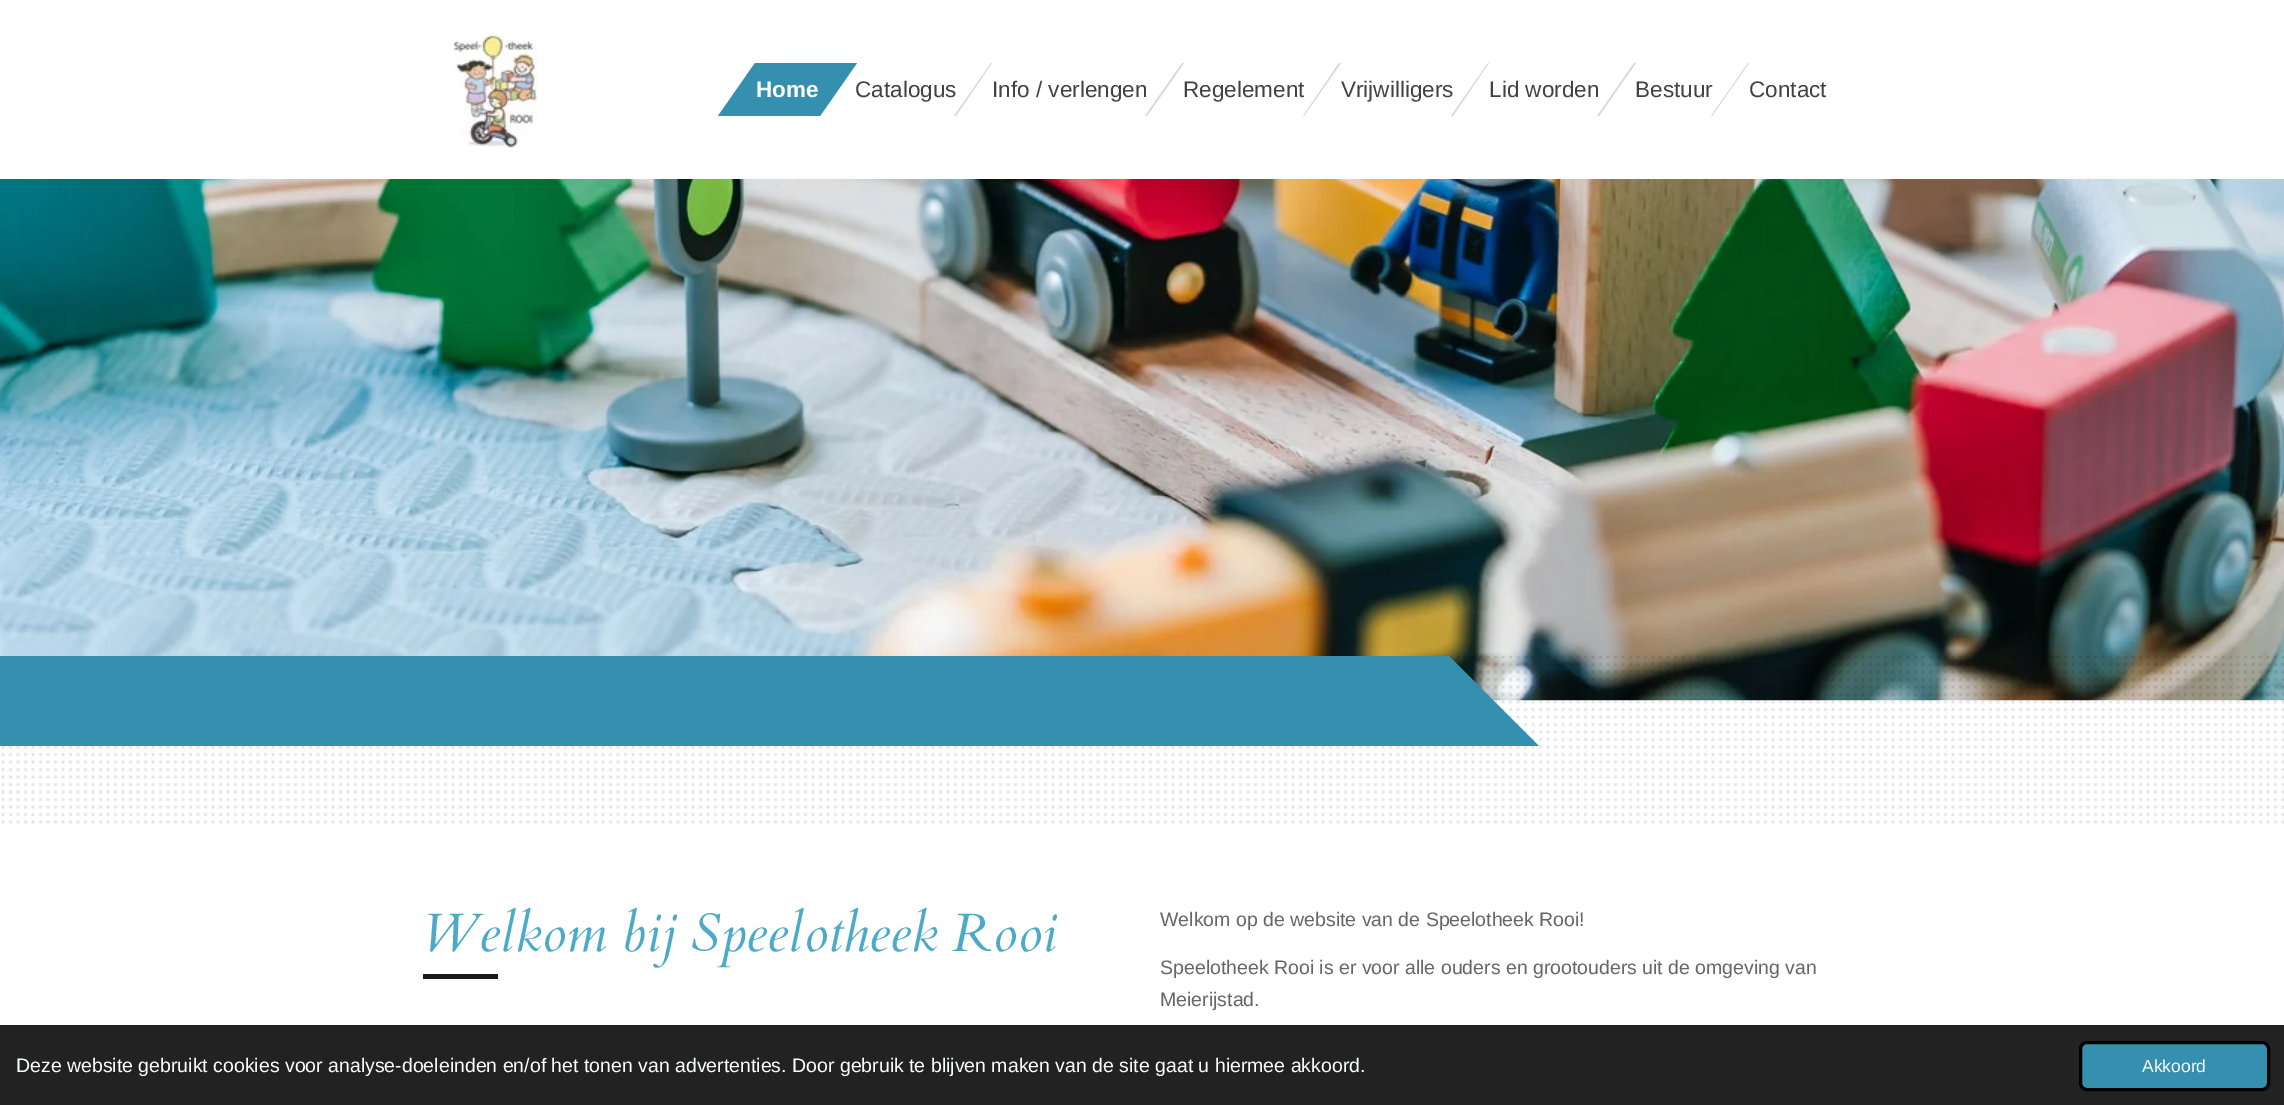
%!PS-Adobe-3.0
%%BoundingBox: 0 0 2284 1105
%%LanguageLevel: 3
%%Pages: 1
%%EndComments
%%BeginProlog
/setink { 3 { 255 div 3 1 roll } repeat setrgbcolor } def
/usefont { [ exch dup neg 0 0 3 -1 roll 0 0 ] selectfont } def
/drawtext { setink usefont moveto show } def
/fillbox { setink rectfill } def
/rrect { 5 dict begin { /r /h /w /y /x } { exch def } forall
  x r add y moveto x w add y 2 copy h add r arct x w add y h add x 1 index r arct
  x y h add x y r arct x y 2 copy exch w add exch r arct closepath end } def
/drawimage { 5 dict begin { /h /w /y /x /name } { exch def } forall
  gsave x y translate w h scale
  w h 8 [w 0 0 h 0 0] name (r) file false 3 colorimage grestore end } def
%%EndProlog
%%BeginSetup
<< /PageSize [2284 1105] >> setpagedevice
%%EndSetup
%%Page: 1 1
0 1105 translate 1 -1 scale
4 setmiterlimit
0 0 2284 1105 255 255 255 fillbox
(assets/img1.rgb) 453 33 85 115 drawimage
217 217 217 setink
991 63 moveto 992 63 lineto 956 116 lineto 954 116 lineto closepath fill
(Catalogus) 855 97 /LiberationSans-Regular 22.5 66 66 66 drawtext
52 144 174 setink
755 63 moveto 857 63 lineto 820 116 lineto 718 116 lineto closepath fill
(Home) 756 97 /LiberationSans-Bold 22.5 252 254 254 drawtext
217 217 217 setink
1182 63 moveto 1184 63 lineto 1147 116 lineto 1145 116 lineto closepath fill
(Info / verlengen) 992 97 /LiberationSans-Regular 22.5 66 66 66 drawtext
217 217 217 setink
1339 63 moveto 1341 63 lineto 1304 116 lineto 1303 116 lineto closepath fill
(Regelement) 1183 97 /LiberationSans-Regular 22.5 66 66 66 drawtext
217 217 217 setink
1488 63 moveto 1489 63 lineto 1453 116 lineto 1451 116 lineto closepath fill
(Vrijwilligers) 1341 97 /LiberationSans-Regular 22.5 66 66 66 drawtext
217 217 217 setink
1634 63 moveto 1636 63 lineto 1599 116 lineto 1597 116 lineto closepath fill
(Lid worden) 1489 97 /LiberationSans-Regular 22.5 66 66 66 drawtext
217 217 217 setink
1748 63 moveto 1749 63 lineto 1712 116 lineto 1711 116 lineto closepath fill
(Bestuur) 1635 97 /LiberationSans-Regular 22.5 66 66 66 drawtext
(Contact) 1749 97 /LiberationSans-Regular 22.5 66 66 66 drawtext
(assets/img2.rgb) 0 179 2284 522 drawimage
(assets/img3.rgb) 1 655 2283 169 drawimage
0 656 1449 90 52 144 174 fillbox
1449 746 moveto 1449 656 lineto 1539 746 lineto closepath fill
(Welkom bij Speelotheek Rooi) 422 951 /Cardo-Italic 54 76 170 201 drawtext
423 974 75 5 26 26 26 fillbox
(Welkom op de website van de Speelotheek Rooi!) 1160 926 /LiberationSans-Regular 19.5 102 102 102 drawtext
(Speelotheek Rooi is er voor alle ouders en grootouders uit de omgeving van) 1160 974 /LiberationSans-Regular 19.5 102 102 102 drawtext
(Meierijstad.) 1160 1006 /LiberationSans-Regular 19.5 102 102 102 drawtext
0 1025 2284 80 34 34 34 fillbox
(Deze website gebruikt cookies voor analyse-doeleinden en/of het tonen van advertenties. Door gebruik te blijven maken van de site gaat u hiermee akkoord.) 16 1072 /LiberationSans-Regular 19.5 252 254 254 drawtext
52 144 174 setink
2080.5 1042.5 188 47 6.5 rrect gsave fill grestore
0 0 0 setink
3 setlinewidth
stroke
(Akkoord) 2142 1072 /LiberationSans-Regular 17.5 252 254 254 drawtext
showpage
%%EOF
